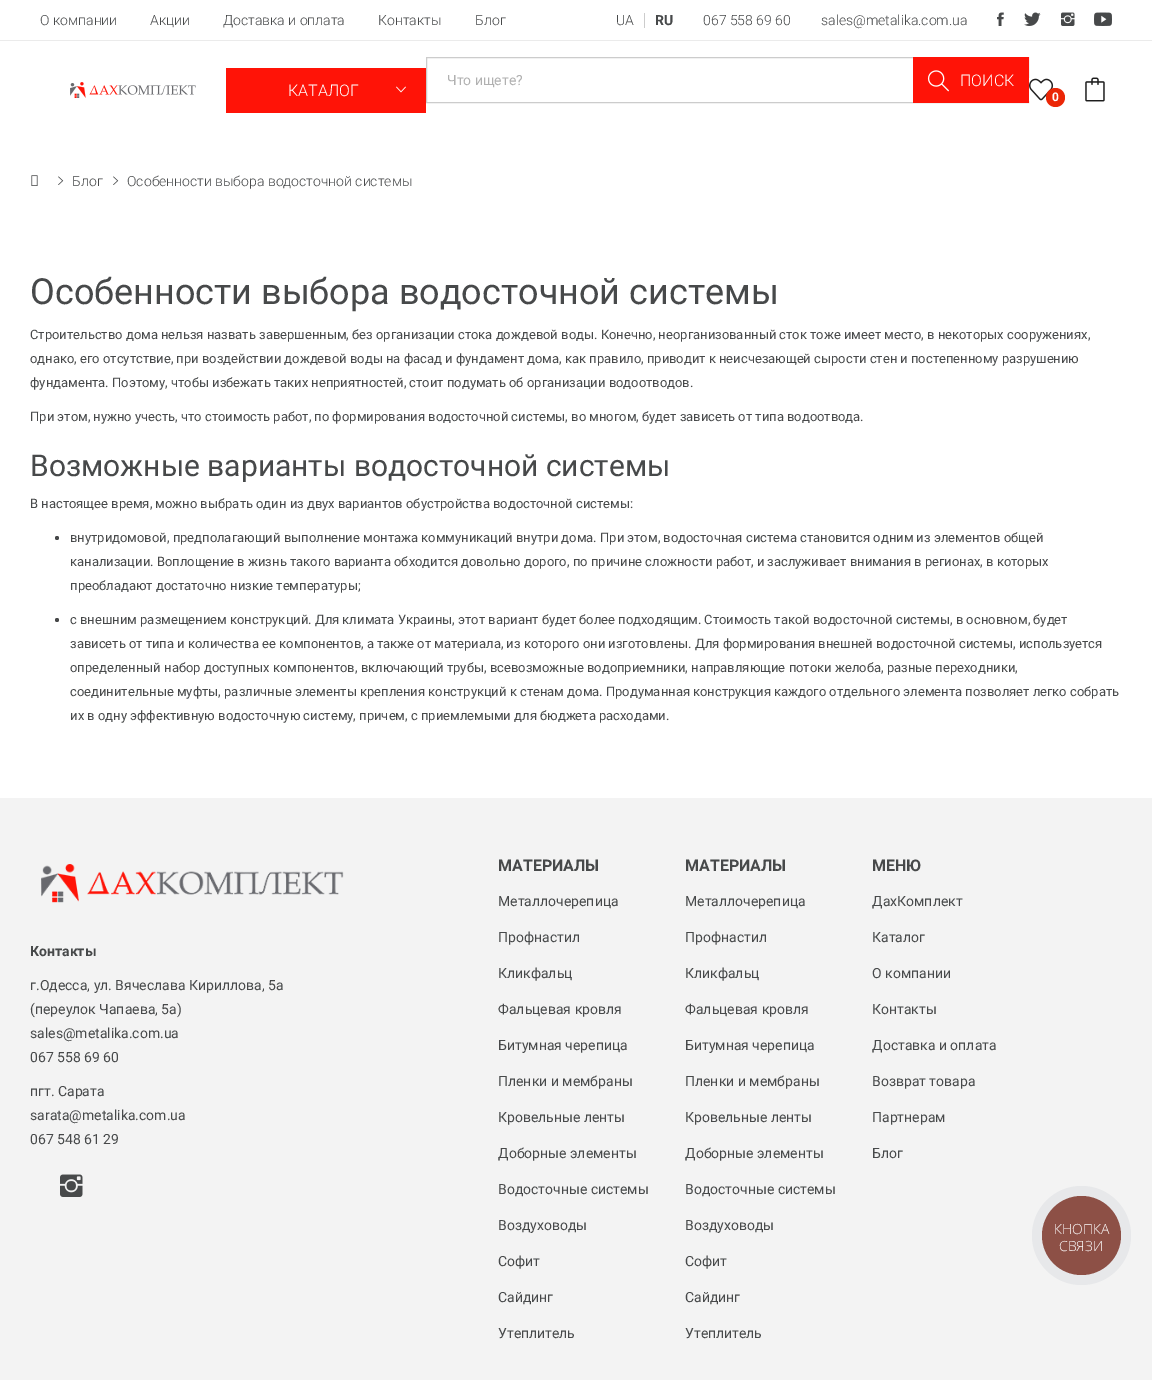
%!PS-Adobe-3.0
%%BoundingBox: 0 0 1152 1380
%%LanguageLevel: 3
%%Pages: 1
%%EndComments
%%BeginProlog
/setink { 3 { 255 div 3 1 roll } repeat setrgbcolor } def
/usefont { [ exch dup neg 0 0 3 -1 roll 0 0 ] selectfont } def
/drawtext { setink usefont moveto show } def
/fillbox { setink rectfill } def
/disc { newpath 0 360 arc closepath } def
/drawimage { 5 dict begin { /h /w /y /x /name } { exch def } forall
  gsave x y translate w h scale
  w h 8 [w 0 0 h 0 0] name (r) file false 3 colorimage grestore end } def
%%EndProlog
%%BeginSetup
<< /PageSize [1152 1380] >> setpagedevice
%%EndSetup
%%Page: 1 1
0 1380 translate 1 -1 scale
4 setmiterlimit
0 0 1152 1380 255 255 255 fillbox
0 40 1152 1 235 235 235 fillbox
(О компании) 40 25 /Roboto-Light 14 71 73 74 drawtext
(Акции) 150 25 /Roboto-Light 14 71 73 74 drawtext
(Доставка и оплата) 223 25 /Roboto-Light 14 71 73 74 drawtext
(Контакты) 378 25 /Roboto-Light 14 71 73 74 drawtext
(Блог) 475 25 /Roboto-Light 14 71 73 74 drawtext
(UA) 616 25 /Roboto-Light 14 71 73 74 drawtext
644 13 1 15 204 204 204 fillbox
(RU) 655 25 /Roboto-Bold 14 71 73 74 drawtext
(067 558 69 60) 703 25 /Roboto-Light 14 71 73 74 drawtext
(sales@metalika.com.ua) 821 25 /Roboto-Light 14 71 73 74 drawtext
(assets/img1.rgb) 997 12 7 14 drawimage
(assets/img2.rgb) 1024 12 17 14 drawimage
(assets/img3.rgb) 1061 12 14 14 drawimage
(assets/img4.rgb) 1094 12 18 14 drawimage
(assets/img5.rgb) 70 82 126 16 drawimage
226 68 200 45 255 19 7 fillbox
(КАТАЛОГ) 288 96 /Roboto-Light 16 255 255 255 drawtext
(assets/img6.rgb) 396 86 10 7 drawimage
204 204 204 setink
426.5 57.5 602 45 rectstroke
(Что ищете?) 447 85 /Roboto-Regular 14 177 177 177 drawtext
913 57 116 46 255 19 7 fillbox
(assets/img7.rgb) 927 70 22 22 drawimage
(ПОИСК) 960 86 /Roboto-Light 16 255 255 255 drawtext
(assets/img8.rgb) 1029 78 25 23 drawimage
235 38 6 setink
1055.5 97.5 9.5 disc fill
(0) 1052 101 /Roboto-Bold 12 255 255 255 drawtext
(assets/img9.rgb) 1085 77 20 25 drawimage
(assets/img10.rgb) 31 175 7 11 drawimage
(assets/img11.rgb) 58 176 6 9 drawimage
(Блог) 72 186 /Roboto-Light 14 71 73 74 drawtext
(assets/img11.rgb) 113 176 6 9 drawimage
(Особенности выбора водосточной системы) 127 186 /Roboto-Light 14 71 73 74 drawtext
(Особенности выбора водосточной системы) 30 304 /Roboto-Regular 36 71 73 74 drawtext
(Строительство дома нельзя назвать завершенным, без организации стока дождевой воды. Конечно, неорганизованный сток тоже имеет место, в некоторых сооружениях,) 30 339 /Roboto-Regular 13 71 73 74 drawtext
(однако, его отсутствие, при воздействии дождевой воды на фасад и фундамент дома, как правило, приводит к неисчезающей сырости стен и постепенному разрушению) 30 363 /Roboto-Regular 13 71 73 74 drawtext
(фундамента. Поэтому, чтобы избежать таких неприятностей, стоит подумать об организации водоотводов.) 30 387 /Roboto-Regular 13 71 73 74 drawtext
(При этом, нужно учесть, что стоимость работ, по формирования водосточной системы, во многом, будет зависеть от типа водоотвода.) 30 421 /Roboto-Regular 13 71 73 74 drawtext
(Возможные варианты водосточной системы) 30 476 /Roboto-Regular 30 71 73 74 drawtext
(В настоящее время, можно выбрать один из двух вариантов обустройства водосточной системы:) 30 508 /Roboto-Regular 13 71 73 74 drawtext
57 538 2 disc fill
(внутридомовой, предполагающий выполнение монтажа коммуникаций внутри дома. При этом, водосточная система становится одним из элементов общей) 70 542 /Roboto-Regular 13 71 73 74 drawtext
(канализации. Воплощение в жизнь такого варианта обходится довольно дорого, по причине сложности работ, и заслуживает внимания в регионах, в которых) 70 566 /Roboto-Regular 13 71 73 74 drawtext
(преобладают достаточно низкие температуры;) 70 590 /Roboto-Regular 13 71 73 74 drawtext
57 620 2 disc fill
(с внешним размещением конструкций. Для климата Украины, этот вариант будет более подходящим. Стоимость такой водосточной системы, в основном, будет) 70 624 /Roboto-Regular 13 71 73 74 drawtext
(зависеть от типа и количества ее компонентов, а также от материала, из которого они изготовлены. Для формирования внешней водосточной системы, используется) 70 648 /Roboto-Regular 13 71 73 74 drawtext
(определенный набор доступных компонентов, включающий трубы, всевозможные водоприемники, направляющие потоки желоба, разные переходники,) 70 672 /Roboto-Regular 13 71 73 74 drawtext
(соединительные муфты, различные элементы крепления конструкций к стенам дома. Продуманная конструкция каждого отдельного элемента позволяет легко собрать) 70 696 /Roboto-Regular 13 71 73 74 drawtext
(их в одну эффективную водосточную систему, причем, с приемлемыми для бюджета расходами.) 70 720 /Roboto-Regular 13 71 73 74 drawtext
0 798 1152 582 243 243 243 fillbox
(assets/img12.rgb) 41 864 303 39 drawimage
(Контакты) 30 956 /Roboto-Bold 14 71 73 74 drawtext
(г.Одесса, ул. Вячеслава Кириллова, 5а) 30 990 /Roboto-Regular 14 71 73 74 drawtext
(\(переулок Чапаева, 5а\)) 30 1014 /Roboto-Regular 14 71 73 74 drawtext
(sales@metalika.com.ua) 30 1038 /Roboto-Regular 14 71 73 74 drawtext
(067 558 69 60) 30 1062 /Roboto-Regular 14 71 73 74 drawtext
(пгт. Сарата) 30 1096 /Roboto-Regular 14 71 73 74 drawtext
(sarata@metalika.com.ua) 30 1120 /Roboto-Regular 14 71 73 74 drawtext
(067 548 61 29) 30 1144 /Roboto-Regular 14 71 73 74 drawtext
(assets/img13.rgb) 60 1174 23 23 drawimage
(МАТЕРИАЛЫ) 498 871 /Roboto-Bold 16 71 73 74 drawtext
(Металлочерепица) 498 906 /Roboto-Regular 14 71 73 74 drawtext
(Профнастил) 498 942 /Roboto-Regular 14 71 73 74 drawtext
(Кликфальц) 498 978 /Roboto-Regular 14 71 73 74 drawtext
(Фальцевая кровля) 498 1014 /Roboto-Regular 14 71 73 74 drawtext
(Битумная черепица) 498 1050 /Roboto-Regular 14 71 73 74 drawtext
(Пленки и мембраны) 498 1086 /Roboto-Regular 14 71 73 74 drawtext
(Кровельные ленты) 498 1122 /Roboto-Regular 14 71 73 74 drawtext
(Доборные элементы) 498 1158 /Roboto-Regular 14 71 73 74 drawtext
(Водосточные системы) 498 1194 /Roboto-Regular 14 71 73 74 drawtext
(Воздуховоды) 498 1230 /Roboto-Regular 14 71 73 74 drawtext
(Софит) 498 1266 /Roboto-Regular 14 71 73 74 drawtext
(Сайдинг) 498 1302 /Roboto-Regular 14 71 73 74 drawtext
(Утеплитель) 498 1338 /Roboto-Regular 14 71 73 74 drawtext
(МАТЕРИАЛЫ) 685 871 /Roboto-Bold 16 71 73 74 drawtext
(Металлочерепица) 685 906 /Roboto-Regular 14 71 73 74 drawtext
(Профнастил) 685 942 /Roboto-Regular 14 71 73 74 drawtext
(Кликфальц) 685 978 /Roboto-Regular 14 71 73 74 drawtext
(Фальцевая кровля) 685 1014 /Roboto-Regular 14 71 73 74 drawtext
(Битумная черепица) 685 1050 /Roboto-Regular 14 71 73 74 drawtext
(Пленки и мембраны) 685 1086 /Roboto-Regular 14 71 73 74 drawtext
(Кровельные ленты) 685 1122 /Roboto-Regular 14 71 73 74 drawtext
(Доборные элементы) 685 1158 /Roboto-Regular 14 71 73 74 drawtext
(Водосточные системы) 685 1194 /Roboto-Regular 14 71 73 74 drawtext
(Воздуховоды) 685 1230 /Roboto-Regular 14 71 73 74 drawtext
(Софит) 685 1266 /Roboto-Regular 14 71 73 74 drawtext
(Сайдинг) 685 1302 /Roboto-Regular 14 71 73 74 drawtext
(Утеплитель) 685 1338 /Roboto-Regular 14 71 73 74 drawtext
(МЕНЮ) 872 871 /Roboto-Bold 16 71 73 74 drawtext
(ДахКомплект) 872 906 /Roboto-Regular 14 71 73 74 drawtext
(Каталог) 872 942 /Roboto-Regular 14 71 73 74 drawtext
(О компании) 872 978 /Roboto-Regular 14 71 73 74 drawtext
(Контакты) 872 1014 /Roboto-Regular 14 71 73 74 drawtext
(Доставка и оплата) 872 1050 /Roboto-Regular 14 71 73 74 drawtext
(Возврат товара) 872 1086 /Roboto-Regular 14 71 73 74 drawtext
(Партнерам) 872 1122 /Roboto-Regular 14 71 73 74 drawtext
(Блог) 872 1158 /Roboto-Regular 14 71 73 74 drawtext
231 232 234 setink
1081.5 1235.5 49.5 disc fill
141 80 70 setink
1081.5 1235.5 39.5 disc fill
(КНОПКА) 1054 1234 /OpenSans-Light 14 255 255 255 drawtext
(СВЯЗИ) 1059 1251 /OpenSans-Light 14 255 255 255 drawtext
showpage
%%EOF
